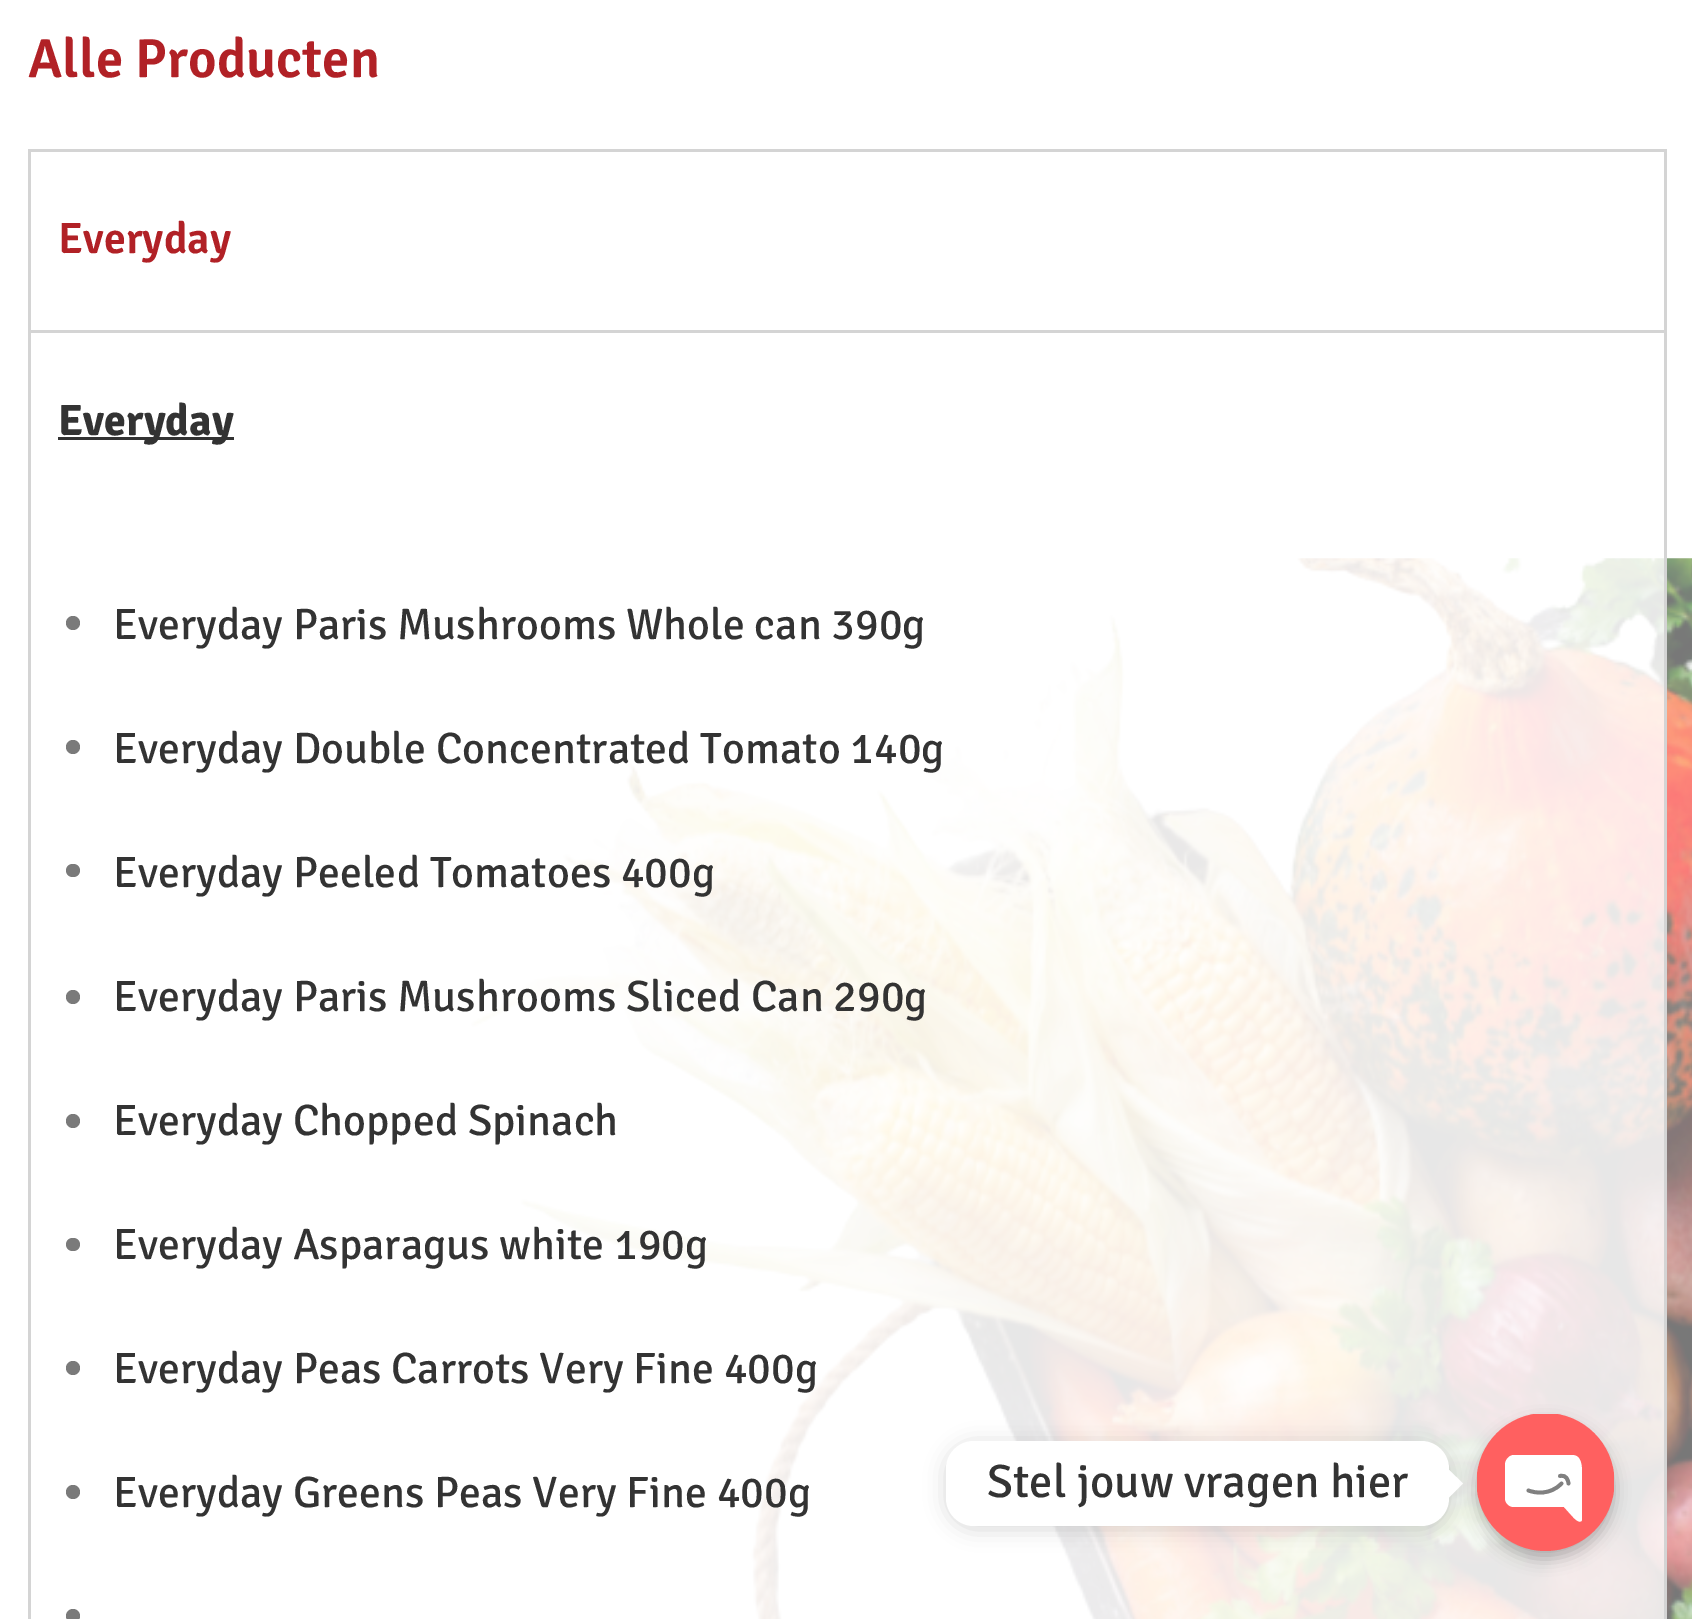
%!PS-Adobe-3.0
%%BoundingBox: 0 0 1692 1619
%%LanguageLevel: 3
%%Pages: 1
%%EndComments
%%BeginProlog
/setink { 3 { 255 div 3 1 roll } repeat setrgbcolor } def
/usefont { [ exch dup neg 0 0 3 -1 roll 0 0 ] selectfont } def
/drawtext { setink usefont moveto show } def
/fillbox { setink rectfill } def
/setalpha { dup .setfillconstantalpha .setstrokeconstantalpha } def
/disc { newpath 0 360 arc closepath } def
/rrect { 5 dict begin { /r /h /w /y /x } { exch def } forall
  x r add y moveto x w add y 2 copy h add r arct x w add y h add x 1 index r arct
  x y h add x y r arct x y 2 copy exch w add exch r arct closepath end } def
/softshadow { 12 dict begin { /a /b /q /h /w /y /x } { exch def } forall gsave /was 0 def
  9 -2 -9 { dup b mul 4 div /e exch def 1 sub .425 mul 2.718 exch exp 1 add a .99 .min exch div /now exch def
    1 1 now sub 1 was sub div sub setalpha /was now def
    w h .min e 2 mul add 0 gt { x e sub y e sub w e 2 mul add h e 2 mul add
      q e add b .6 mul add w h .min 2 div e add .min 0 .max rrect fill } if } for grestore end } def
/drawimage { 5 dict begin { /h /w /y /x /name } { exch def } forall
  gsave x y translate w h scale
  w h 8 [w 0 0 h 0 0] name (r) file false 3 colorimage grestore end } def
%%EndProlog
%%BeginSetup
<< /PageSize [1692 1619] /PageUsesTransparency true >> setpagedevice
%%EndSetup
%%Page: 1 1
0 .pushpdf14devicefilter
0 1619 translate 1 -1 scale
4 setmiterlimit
0 0 1692 1619 255 255 255 fillbox
(assets/img1.rgb) 470 558 1222 1061 drawimage
(Alle Producten) 28 77 /Signika-SemiBold 55 177 33 38 drawtext
28 149 1639 3 212 212 212 fillbox
1664 149 3 181 212 212 212 fillbox
28 149 3 181 212 212 212 fillbox
(Everyday) 58 253 /Signika-SemiBold 44 177 33 38 drawtext
28 330 1639 3 212 212 212 fillbox
1664 330 3 1289 212 212 212 fillbox
28 330 3 1289 212 212 212 fillbox
58 437 176 3 51 51 51 fillbox
(Everyday) 58 435 /Signika-Bold 44 51 51 51 drawtext
122 122 122 setink
73 623 7 disc fill
(Everyday Paris Mushrooms Whole can 390g) 113 639 /Signika-Regular 44 51 51 51 drawtext
122 122 122 setink
73 747 7 disc fill
(Everyday Double Concentrated Tomato 140g) 113 763 /Signika-Regular 44 51 51 51 drawtext
122 122 122 setink
66 864 14 13 6.5 rrect fill
(Everyday Peeled Tomatoes 400g) 113 887 /Signika-Regular 44 51 51 51 drawtext
122 122 122 setink
73 997 7 disc fill
(Everyday Paris Mushrooms Sliced Can 290g) 113 1011 /Signika-Regular 44 51 51 51 drawtext
122 122 122 setink
73 1121 7 disc fill
(Everyday Chopped Spinach) 113 1135 /Signika-Regular 44 51 51 51 drawtext
122 122 122 setink
66 1238 14 13 6.5 rrect fill
(Everyday Asparagus white 190g) 113 1259 /Signika-Regular 44 51 51 51 drawtext
122 122 122 setink
73 1368 7 disc fill
(Everyday Peas Carrots Very Fine 400g) 113 1383 /Signika-Regular 44 51 51 51 drawtext
122 122 122 setink
73 1492 7 disc fill
(Everyday Greens Peas Very Fine 400g) 113 1507 /Signika-Regular 44 51 51 51 drawtext
122 122 122 setink
73 1616 7 disc fill
gsave
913 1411 moveto 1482 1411 lineto 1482 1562 lineto 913 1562 lineto closepath 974 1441 moveto 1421 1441 lineto 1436.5 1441 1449 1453.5 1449 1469 curveto 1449 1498 lineto 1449 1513.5 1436.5 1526 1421 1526 curveto 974 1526 lineto 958.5 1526 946 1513.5 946 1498 curveto 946 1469 lineto 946 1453.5 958.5 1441 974 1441 curveto closepath eoclip newpath
0 0 0 setink
946 1444 503 85 28 10.5 0.15 softshadow
grestore
255 255 255 setink
946 1441 503 85 28 rrect fill
(Stel jouw vragen hier) 987 1497 /Signika-Regular 46.75 51 51 51 drawtext
255 255 255 setink
1449 1497.5 moveto 1449 1470 lineto 1463 1483.5 lineto closepath fill
0 0 0 setink
1477 1422 137 137 68.5 8 0.25 softshadow
gsave
1477 1414 137 137 rectclip
255 96 96 setink
1545.5 1482 69 disc fill
grestore
255 255 255 setink
1572 1455 moveto 1514 1455 lineto 1509 1455 1505 1460 1505 1465 curveto 1505 1498 lineto 1505 1503 1509 1507 1514 1507 curveto 1564 1507 lineto 1573 1517 lineto 1573 1517 1580 1525 1582 1520 curveto 1582 1474 lineto 1582 1467 1582 1455 1572 1455 curveto closepath fill
128 128 128 setink
3.8 setlinewidth
1 setlinecap
1 setlinejoin
1528.5 1490.5 moveto 1535 1493 1550 1495.5 1561.5 1483.5 curveto 1568.5 1483.5 moveto 1568 1480 1566.5 1474.5 1560 1476 curveto stroke
.poppdf14devicefilter showpage
%%EOF
